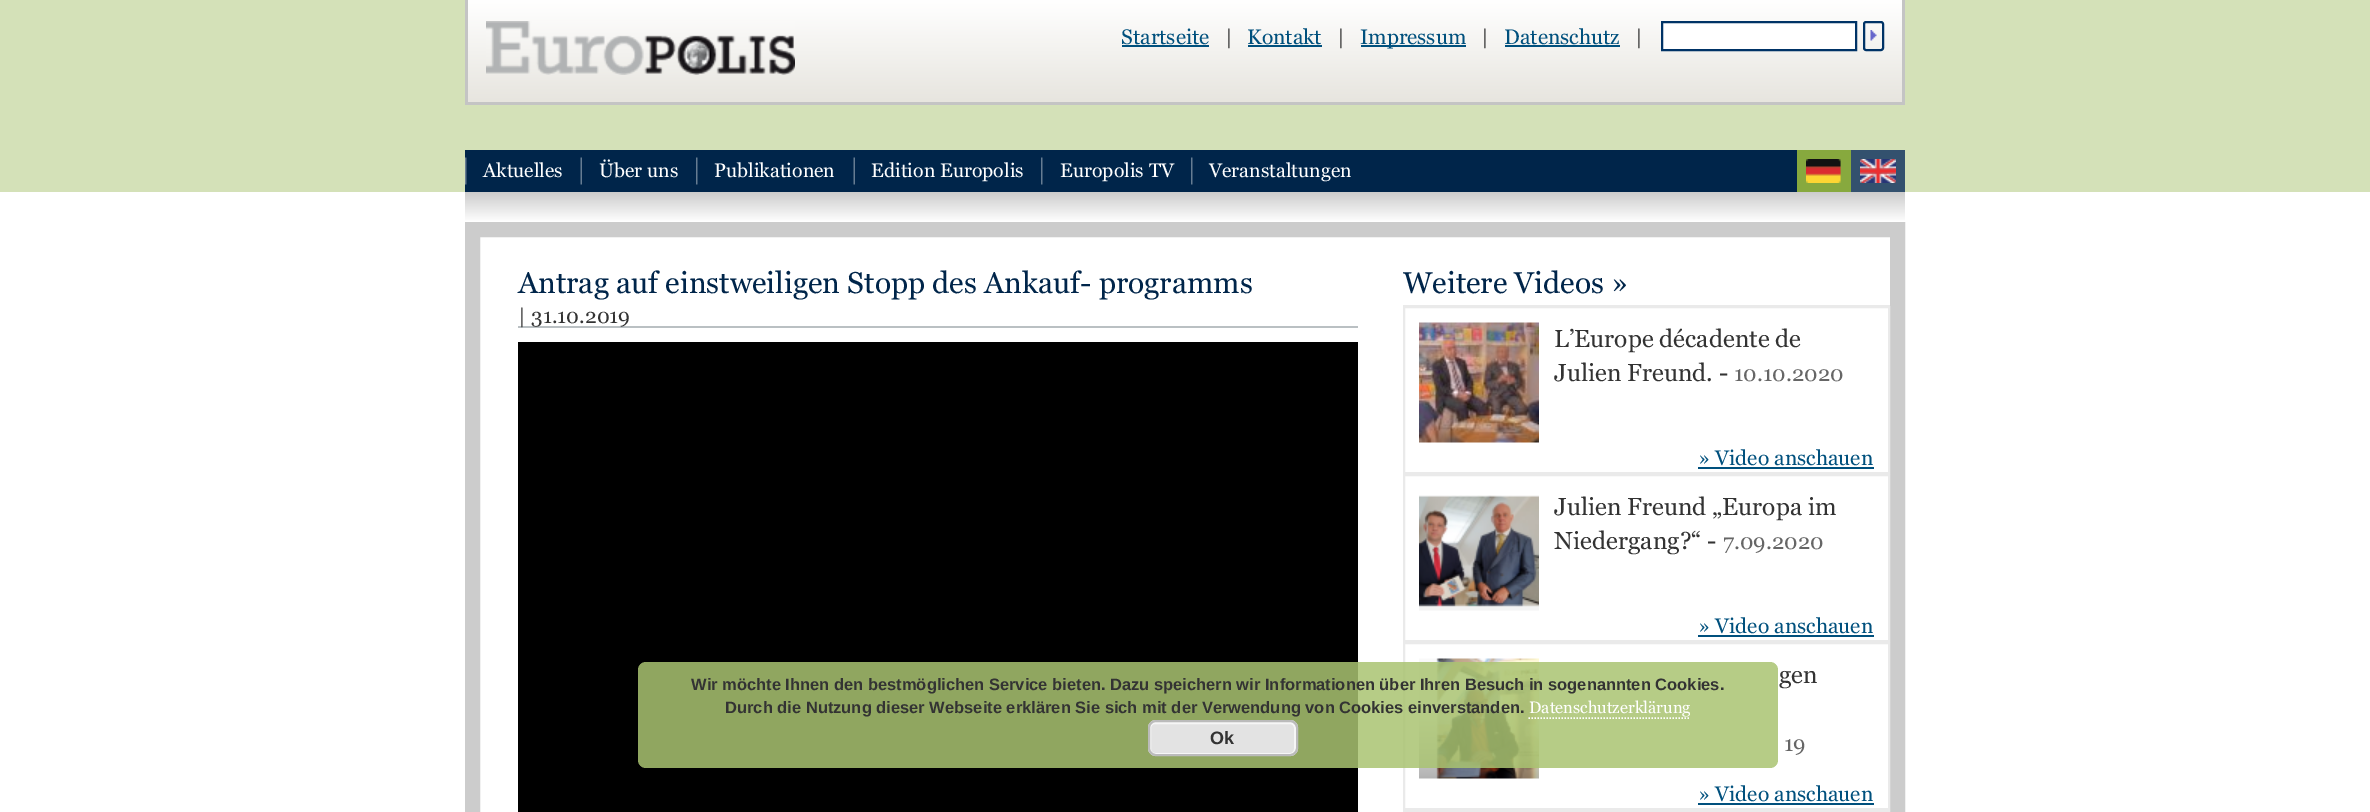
%!PS-Adobe-3.0
%%BoundingBox: 0 0 2370 812
%%LanguageLevel: 3
%%Pages: 1
%%EndComments
%%BeginProlog
/setink { 3 { 255 div 3 1 roll } repeat setrgbcolor } def
/usefont { [ exch dup neg 0 0 3 -1 roll 0 0 ] selectfont } def
/drawtext { setink usefont moveto show } def
/fillbox { setink rectfill } def
/setalpha { dup .setfillconstantalpha .setstrokeconstantalpha } def
/rrect { 5 dict begin { /r /h /w /y /x } { exch def } forall
  x r add y moveto x w add y 2 copy h add r arct x w add y h add x 1 index r arct
  x y h add x y r arct x y 2 copy exch w add exch r arct closepath end } def
/drawimage { 5 dict begin { /h /w /y /x /name } { exch def } forall
  gsave x y translate w h scale
  w h 8 [w 0 0 h 0 0] name (r) file false 3 colorimage grestore end } def
%%EndProlog
%%BeginSetup
<< /PageSize [2370 812] /PageUsesTransparency true >> setpagedevice
%%EndSetup
%%Page: 1 1
0 .pushpdf14devicefilter
0 812 translate 1 -1 scale
4 setmiterlimit
0 0 2370 812 255 255 255 fillbox
0 0 2370 192 212 225 184 fillbox
gsave 468 0 moveto 1902 0 lineto 1902 102 lineto 468 102 lineto closepath clip newpath
<< /ShadingType 2 /ColorSpace /DeviceRGB /Coords [1185 0 1185 102] /Extend [true true] /Function << /FunctionType 2 /Domain [0 1] /C0 [1 1 1] /C1 [0.906 0.898 0.875] /N 1 >> >> shfill grestore
1902 0 3 105 196 196 196 fillbox
465 102 1440 3 196 196 196 fillbox
465 0 3 105 196 196 196 fillbox
(assets/img1.rgb) 486 21 309 54 drawimage
(Startseite) 1121 44 /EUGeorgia-Regular 21 0 80 125 drawtext
1122 45 87 2 0 80 125 fillbox
(|) 1225 44 /EUGeorgia-Regular 21 51 51 51 drawtext
(Kontakt) 1247 44 /EUGeorgia-Regular 21 0 80 125 drawtext
1248 45 74 2 0 80 125 fillbox
(|) 1337 44 /EUGeorgia-Regular 21 51 51 51 drawtext
1361 45 105 2 0 80 125 fillbox
(Impressum) 1360 44 /EUGeorgia-Regular 21 0 80 125 drawtext
(|) 1481 44 /EUGeorgia-Regular 21 51 51 51 drawtext
(Datenschutz) 1504 44 /EUGeorgia-Regular 21 0 80 125 drawtext
1505 45 115 2 0 80 125 fillbox
(|) 1635 44 /EUGeorgia-Regular 21 51 51 51 drawtext
255 255 255 setink
1662 22 moveto 1856 22 lineto 1856 50 lineto 1662 50 lineto closepath gsave fill grestore
0 51 102 setink
2 setlinewidth
stroke
(assets/img2.rgb) 1870 30 7 11 drawimage
1864 22 19 28 2 rrect stroke
465 150 1332 42 0 37 74 fillbox
(assets/img3.rgb) 465 157 2 28 drawimage
(Aktuelles) 483 177 /EUGeorgia-Regular 19.5 255 255 255 drawtext
(assets/img4.rgb) 580 157 2 28 drawimage
(Über uns) 599 177 /EUGeorgia-Regular 19.5 255 255 255 drawtext
(assets/img3.rgb) 696 157 2 28 drawimage
(Publikationen) 714 177 /EUGeorgia-Regular 19.5 255 255 255 drawtext
(assets/img4.rgb) 853 157 2 28 drawimage
(Edition Europolis) 871 177 /EUGeorgia-Regular 19.5 255 255 255 drawtext
(assets/img3.rgb) 1041 157 2 28 drawimage
(Europolis TV) 1060 177 /EUGeorgia-Regular 19.5 255 255 255 drawtext
(assets/img3.rgb) 1191 157 2 28 drawimage
(Veranstaltungen) 1209 177 /EUGeorgia-Regular 19.5 255 255 255 drawtext
1851 150 54 42 51 81 110 fillbox
1797 150 54 42 135 169 62 fillbox
(assets/img5.rgb) 1806 159 35 24 drawimage
(assets/img6.rgb) 1860 159 36 24 drawimage
gsave 465 192 moveto 1905 192 lineto 1905 221 lineto 465 221 lineto closepath clip newpath
<< /ShadingType 2 /ColorSpace /DeviceRGB /Coords [1185 192 1185 222] /Extend [true true] /Function << /FunctionType 2 /Domain [0 1] /C0 [0.8 0.8 0.8] /C1 [1 1 1] /N 1 >> >> shfill grestore
204 204 204 setink
15 setlinewidth
472.5 229.5 1425 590 rectstroke
(Antrag auf einstweiligen Stopp des Ankauf- programms) 518 293 /EUGeorgia-Regular 30 0 37 74 drawtext
518 326 840 2 186 192 195 fillbox
(| 31.10.2019) 518 323 /EUGeorgia-Regular 21 51 51 51 drawtext
518 342 840 470 0 0 0 fillbox
(Weitere Videos ») 1403 293 /EUGeorgia-Regular 30 0 37 74 drawtext
1403 305 487 1 234 234 234 fillbox
2 setlinewidth
1404 307 485 166 rectstroke
(assets/img7.rgb) 1419 322 120 121 drawimage
(L’Europe décadente de) 1554 347 /EUGeorgia-Regular 24.5 51 51 51 drawtext
(Julien Freund. -) 1554 381 /EUGeorgia-Regular 24.5 51 51 51 drawtext
(10.10.2020) 1734 381 /EUGeorgia-Regular 22 102 102 102 drawtext
(» Video anschauen) 1698 465 /EUGeorgia-Regular 21 0 80 125 drawtext
1698 467 176 2 0 80 125 fillbox
234 234 234 setink
1404 475 485 166 rectstroke
(assets/img8.rgb) 1419 495 120 116 drawimage
(Julien Freund „Europa im) 1554 515 /EUGeorgia-Regular 24.5 51 51 51 drawtext
(Niedergang?“ -) 1554 549 /EUGeorgia-Regular 24.5 51 51 51 drawtext
(7.09.2020) 1723 549 /EUGeorgia-Regular 22 102 102 102 drawtext
(» Video anschauen) 1698 633 /EUGeorgia-Regular 21 0 80 125 drawtext
1698 635 176 2 0 80 125 fillbox
234 234 234 setink
1404 643 485 166 rectstroke
(assets/img9.rgb) 1419 658 120 121 drawimage
(gen) 1779 683 /EUGeorgia-Regular 24.5 51 51 51 drawtext
(19) 1784 751 /EUGeorgia-Regular 22 102 102 102 drawtext
(» Video anschauen) 1698 801 /EUGeorgia-Regular 21 0 80 125 drawtext
1698 803 176 2 0 80 125 fillbox
234 234 234 setink
1404 811 485 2 rectstroke
0.85 setalpha
169 195 113 setink
638 662 1140 106 8 rrect fill
1 setalpha
(Wir möchte Ihnen den bestmöglichen Service bieten. Dazu speichern wir Informationen über Ihren Besuch in sogenannten Cookies.) 691 690 /LiberationSans-Bold 16.5 51 51 51 drawtext
(Durch die Nutzung dieser Webseite erklären Sie sich mit der Verwendung von Cookies einverstanden.) 725 713 /LiberationSans-Bold 16.5 51 51 51 drawtext
(Datenschutzerklärung) 1529 713 /EUGeorgia-Regular 16.5 255 255 255 drawtext
1.5 setlinewidth
[1.5 1.5] 0 setdash
1528.5 718 moveto 1690.5 718 lineto stroke
227 227 227 setink
1148 720 150 36 8 rrect fill
246 246 246 setink
2 setlinewidth
[] 0 setdash
1150 723 145 31 5 rrect stroke
187 187 187 setink
1149 721 148 34 7 rrect stroke
(Ok) 1210 744 /LiberationSans-Bold 18 51 51 51 drawtext
.poppdf14devicefilter showpage
%%EOF
